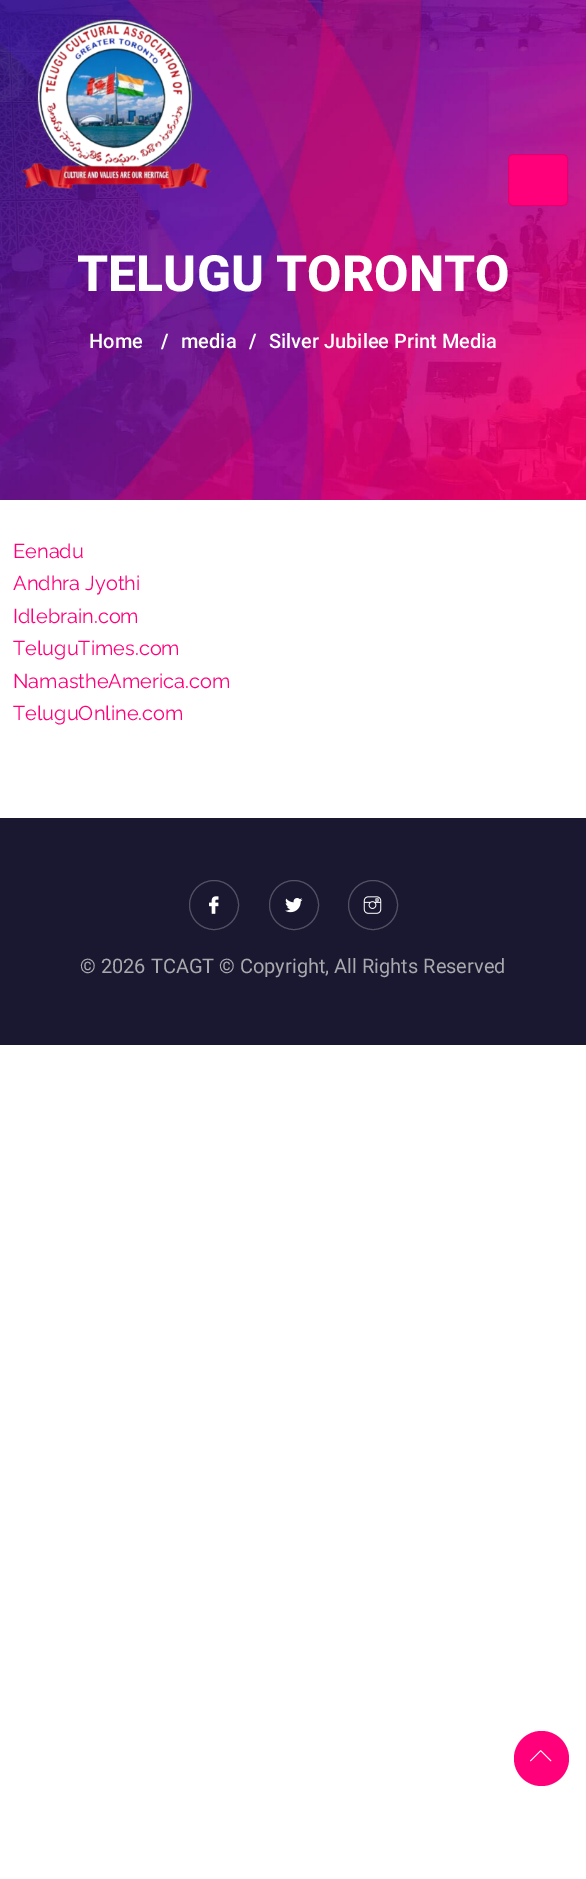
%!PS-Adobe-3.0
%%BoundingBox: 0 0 586 1879
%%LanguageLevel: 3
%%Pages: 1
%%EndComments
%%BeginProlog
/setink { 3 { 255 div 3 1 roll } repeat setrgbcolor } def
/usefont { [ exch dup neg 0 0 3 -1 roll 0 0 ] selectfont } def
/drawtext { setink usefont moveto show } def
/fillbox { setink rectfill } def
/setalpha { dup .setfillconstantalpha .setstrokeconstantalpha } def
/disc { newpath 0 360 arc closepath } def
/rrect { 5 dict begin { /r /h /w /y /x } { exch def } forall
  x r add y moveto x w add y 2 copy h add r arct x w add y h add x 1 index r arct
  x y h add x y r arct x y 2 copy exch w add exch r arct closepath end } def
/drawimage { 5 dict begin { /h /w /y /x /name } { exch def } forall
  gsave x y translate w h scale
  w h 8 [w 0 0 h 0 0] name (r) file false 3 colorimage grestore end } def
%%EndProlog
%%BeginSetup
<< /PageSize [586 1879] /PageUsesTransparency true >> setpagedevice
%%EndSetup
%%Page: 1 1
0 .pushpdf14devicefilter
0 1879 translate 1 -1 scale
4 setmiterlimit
0 0 586 1879 255 255 255 fillbox
(assets/img2.rgb) 0 0 586 500 drawimage
(assets/img1.rgb) 21 18 191 172 drawimage
255 0 122 setink
508 154 60 52 5 rrect fill
0.1 setalpha
0 0 0 setink
508.5 154.5 59 51 4.5 rrect stroke
1 setalpha
(TELUGU TORONTO) 77 291 /Roboto-ExtraBold 50 255 255 255 drawtext
(Home) 89 348 /Roboto-Medium 20 255 255 255 drawtext
(/) 161 348 /Roboto-Bold 20 255 255 255 drawtext
(media) 181 348 /Roboto-Medium 20 255 255 255 drawtext
(/) 249 348 /Roboto-Bold 20 255 255 255 drawtext
(Silver Jubilee Print Media) 269 348 /Roboto-Medium 20 255 255 255 drawtext
(Eenadu) 13 558 /Raleway-Regular 20 255 0 122 drawtext
(Andhra Jyothi) 13 590 /Raleway-Regular 20 255 0 122 drawtext
(Idlebrain.com) 13 623 /Raleway-Regular 20 255 0 122 drawtext
(TeluguTimes.com) 13 655 /Raleway-Regular 20 255 0 122 drawtext
(NamastheAmerica.com) 13 688 /Raleway-Regular 20 255 0 122 drawtext
(TeluguOnline.com) 13 720 /Raleway-Regular 20 255 0 122 drawtext
0 818 586 227 26 24 49 fillbox
82 81 100 setink
214 905 24.5 disc stroke
(assets/img3.rgb) 209 896 10 18 drawimage
294 905 24.5 disc stroke
(assets/img4.rgb) 285 898 18 15 drawimage
373 905 24.5 disc stroke
(assets/img5.rgb) 363 896 19 18 drawimage
(© 2026 TCAGT © Copyright, All Rights Reserved) 80 973 /Roboto-Regular 20 168 168 173 drawtext
255 0 122 setink
541.5 1758.5 27.5 disc fill
(assets/img6.rgb) 530 1750 22 12 drawimage
.poppdf14devicefilter showpage
%%EOF
